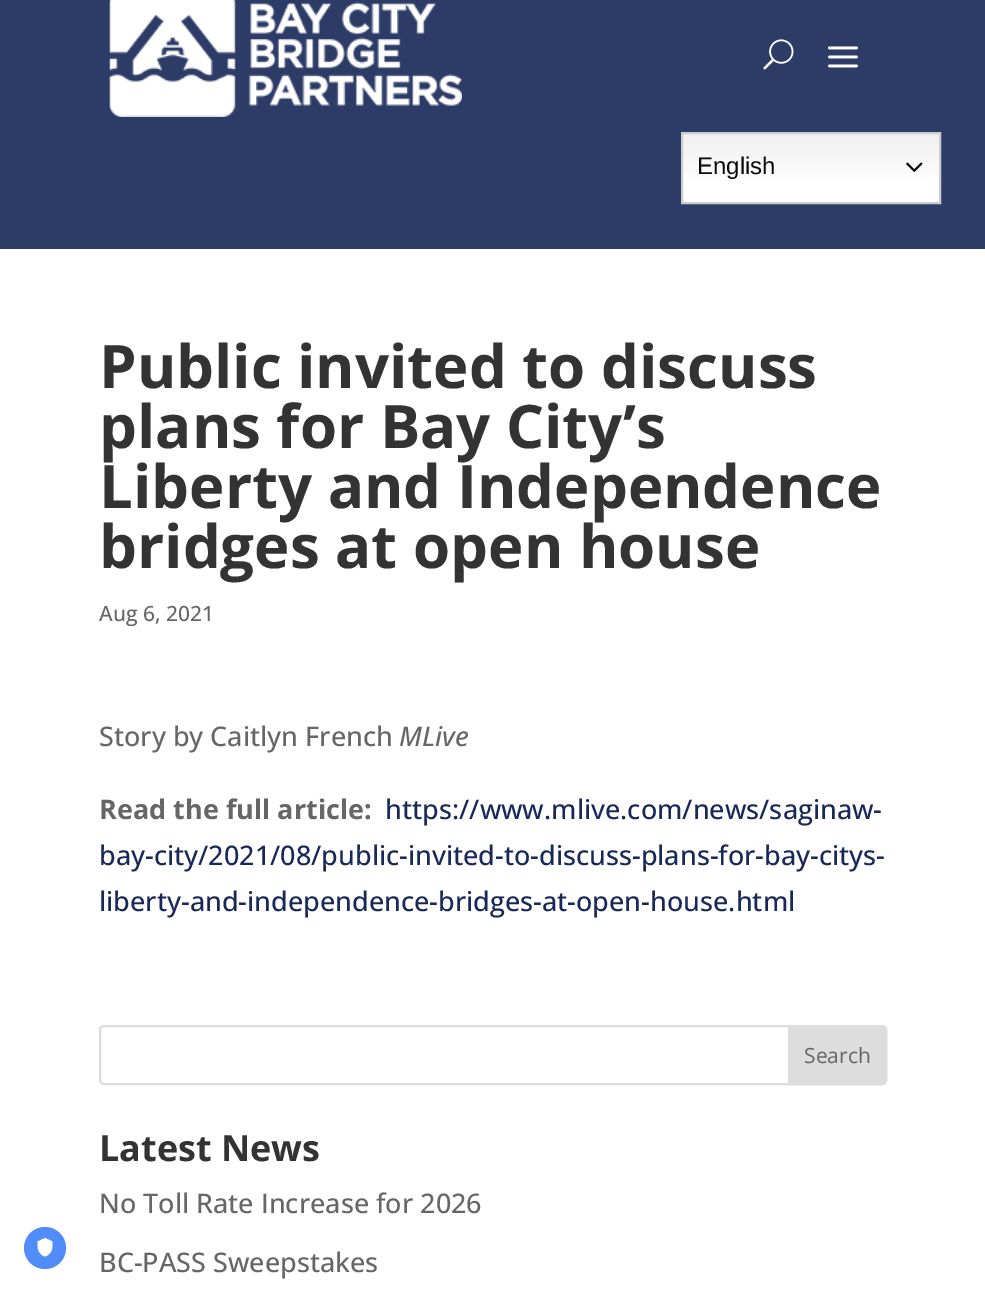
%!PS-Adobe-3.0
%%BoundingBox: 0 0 985 1292
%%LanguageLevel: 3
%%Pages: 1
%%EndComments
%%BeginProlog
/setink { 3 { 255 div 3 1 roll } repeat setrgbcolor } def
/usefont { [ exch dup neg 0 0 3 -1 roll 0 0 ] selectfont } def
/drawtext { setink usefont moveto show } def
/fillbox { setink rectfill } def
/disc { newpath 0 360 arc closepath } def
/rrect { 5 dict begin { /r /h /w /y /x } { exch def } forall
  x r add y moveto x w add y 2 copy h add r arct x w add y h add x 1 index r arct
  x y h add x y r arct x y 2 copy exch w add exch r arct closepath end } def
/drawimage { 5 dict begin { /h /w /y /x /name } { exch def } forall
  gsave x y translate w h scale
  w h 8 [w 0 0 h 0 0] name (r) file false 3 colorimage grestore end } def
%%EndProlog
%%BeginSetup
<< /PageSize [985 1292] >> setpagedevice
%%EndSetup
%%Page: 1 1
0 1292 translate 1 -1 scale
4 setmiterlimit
0 0 985 1292 255 255 255 fillbox
80 141 250 setink
45 1248 21 disc fill
(assets/img1.rgb) 37 1238 16 19 drawimage
0 0 985 249 45 59 103 fillbox
(assets/img2.rgb) 109 0 353 117 drawimage
(assets/img3.rgb) 763 39 31 31 drawimage
(assets/img4.rgb) 828 46 30 22 drawimage
gsave 683 134 moveto 939 134 lineto 939 202 lineto 683 202 lineto closepath clip newpath
<< /ShadingType 2 /ColorSpace /DeviceRGB /Coords [811 132 811 204] /Extend [true true] /Function << /FunctionType 3 /Domain [0 1] /Functions [<< /FunctionType 2 /Domain [0 1] /C0 [0.937 0.937 0.937] /C1 [1 1 1] /N 1 >> << /FunctionType 2 /Domain [0 1] /C0 [1 1 1] /C1 [1 1 1] /N 1 >>] /Bounds [0.7] /Encode [0 1 0 1] >> >> shfill grestore
204 204 204 setink
2 setlinewidth
682 133 258 70 rectstroke
(English) 697 174 /LiberationSans-Regular 24 10 10 10 drawtext
(assets/img5.rgb) 906 162 17 10 drawimage
(Public invited to discuss) 99 388 /OpenSans-Bold 60 51 51 51 drawtext
(plans for Bay City’s) 99 448 /OpenSans-Bold 60 51 51 51 drawtext
(Liberty and Independence) 99 508 /OpenSans-Bold 60 51 51 51 drawtext
(bridges at open house) 99 568 /OpenSans-Bold 60 51 51 51 drawtext
(Aug 6, 2021) 99 621 /OpenSans-Medium 21 102 102 102 drawtext
(Story by Caitlyn French) 99 746 /OpenSans-Medium 27 102 102 102 drawtext
(MLive) 399 746 /OpenSans-MediumItalic 27 102 102 102 drawtext
(Read the full article:) 99 819 /OpenSans-Bold 27 102 102 102 drawtext
(https://www.mlive.com/news/saginaw-) 385 819 /OpenSans-Medium 27 24 40 88 drawtext
(bay-city/2021/08/public-invited-to-discuss-plans-for-bay-citys-) 99 865 /OpenSans-Medium 27 24 40 88 drawtext
(liberty-and-independence-bridges-at-open-house.html) 99 911 /OpenSans-Medium 27 24 40 88 drawtext
221 221 221 setink
100 1026 786 58 4 rrect stroke
789 1026 moveto 882 1026 lineto 884 1026 886 1028 886 1030 curveto 886 1080 lineto 886 1082 884 1084 882 1084 curveto 789 1084 lineto closepath gsave fill grestore
stroke
(Search) 804 1063 /OpenSans-Regular 21 102 102 102 drawtext
(Latest News) 99 1161 /OpenSans-Bold 36 51 51 51 drawtext
(No Toll Rate Increase for 2026) 99 1213 /OpenSans-Medium 27 102 102 102 drawtext
(BC-PASS Sweepstakes) 99 1272 /OpenSans-Medium 27 102 102 102 drawtext
showpage
%%EOF
